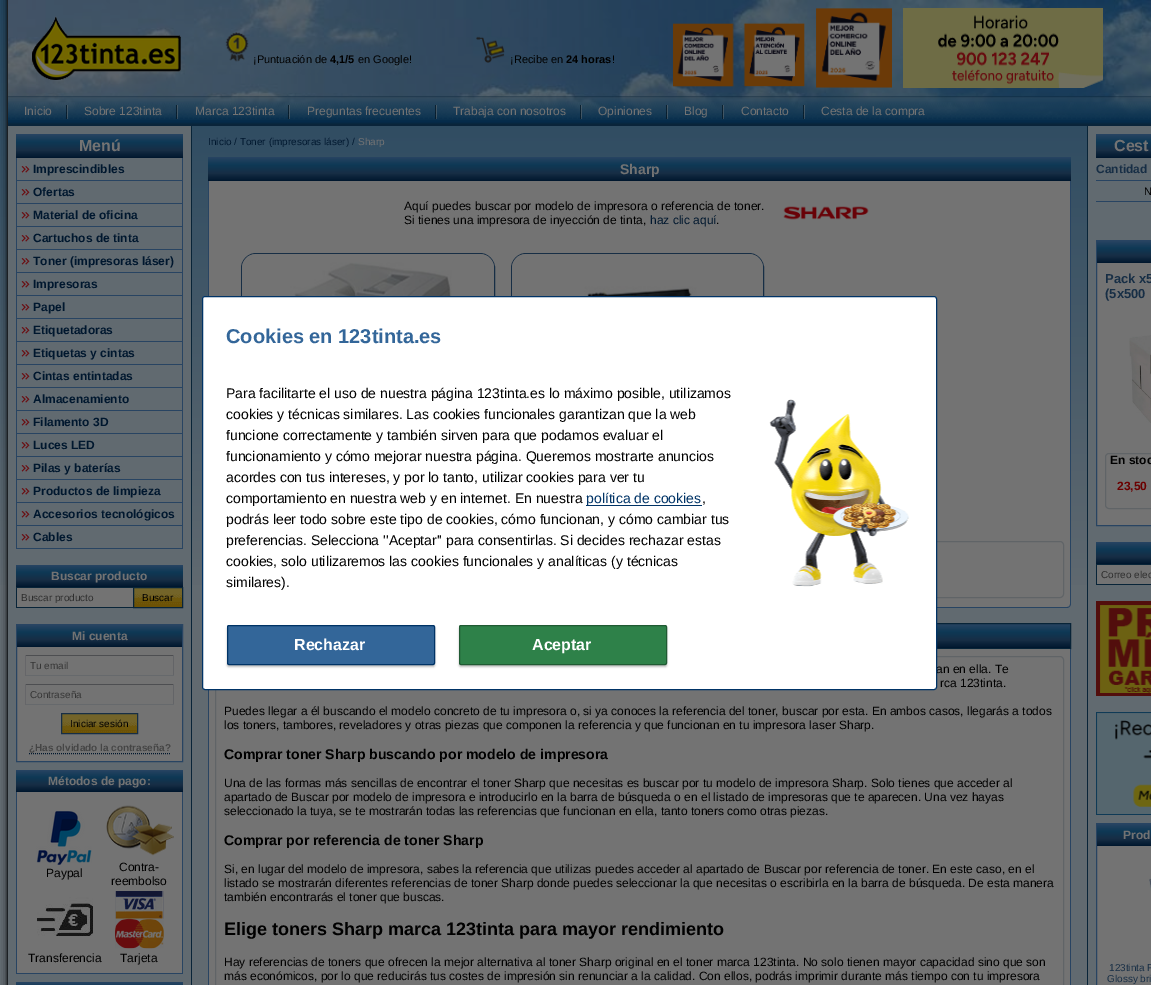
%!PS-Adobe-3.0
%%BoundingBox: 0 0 1151 985
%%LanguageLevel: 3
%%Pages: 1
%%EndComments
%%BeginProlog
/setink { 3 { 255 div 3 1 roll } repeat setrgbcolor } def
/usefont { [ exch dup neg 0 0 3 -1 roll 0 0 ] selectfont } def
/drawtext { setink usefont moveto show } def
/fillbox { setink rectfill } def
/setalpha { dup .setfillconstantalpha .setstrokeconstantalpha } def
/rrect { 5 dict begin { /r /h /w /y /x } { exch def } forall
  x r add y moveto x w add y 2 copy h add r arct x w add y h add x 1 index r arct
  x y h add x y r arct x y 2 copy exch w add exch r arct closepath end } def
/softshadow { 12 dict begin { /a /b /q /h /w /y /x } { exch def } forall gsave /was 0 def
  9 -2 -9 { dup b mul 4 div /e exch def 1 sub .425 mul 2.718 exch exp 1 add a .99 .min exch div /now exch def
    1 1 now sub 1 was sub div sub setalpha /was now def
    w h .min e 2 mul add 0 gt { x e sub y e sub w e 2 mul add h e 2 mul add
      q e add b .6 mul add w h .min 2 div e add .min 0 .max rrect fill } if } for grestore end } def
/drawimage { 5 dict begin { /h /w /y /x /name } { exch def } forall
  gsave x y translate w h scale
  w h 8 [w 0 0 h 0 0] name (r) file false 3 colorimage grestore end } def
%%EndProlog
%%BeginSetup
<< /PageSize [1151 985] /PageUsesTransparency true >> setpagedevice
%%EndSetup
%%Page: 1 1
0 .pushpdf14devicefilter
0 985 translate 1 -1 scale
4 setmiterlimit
0 0 1151 985 97 106 112 fillbox
(assets/img1.rgb) 0 0 1087 585 drawimage
(assets/img2.rgb) 1 0 1150 985 drawimage
(assets/img3.rgb) 8 0 1143 96 drawimage
(assets/img4.rgb) 32 16 149 64 drawimage
(assets/img5.rgb) 225 32 24 30 drawimage
(¡Puntuación de) 253 63 /LiberationSans-Regular 11 0 0 0 drawtext
(4,1/5) 330 63 /LiberationSans-Bold 11 0 0 0 drawtext
(en Google!) 358 63 /LiberationSans-Regular 11 0 0 0 drawtext
(assets/img6.rgb) 476 36 29 27 drawimage
(¡Recibe en) 510 63 /LiberationSans-Regular 11 0 0 0 drawtext
(24 horas) 566 63 /LiberationSans-Bold 11 0 0 0 drawtext
(!) 612 63 /LiberationSans-Regular 11 0 0 0 drawtext
(assets/img7.rgb) 673 8 219 80 drawimage
(assets/img8.rgb) 903 8 200 80 drawimage
(assets/img9.rgb) 8 96 1143 24 drawimage
(assets/img10.rgb) 8 96 1143 30 drawimage
(assets/img11.rgb) 66 105 2 14 drawimage
(Inicio) 24 115 /LiberationSans-Regular 12 115 115 115 drawtext
(assets/img11.rgb) 176 105 2 14 drawimage
(Sobre 123tinta) 84 115 /LiberationSans-Regular 12 115 115 115 drawtext
(assets/img11.rgb) 288 105 2 14 drawimage
(Marca 123tinta) 195 115 /LiberationSans-Regular 12 115 115 115 drawtext
(assets/img11.rgb) 435 105 2 14 drawimage
(Preguntas frecuentes) 307 115 /LiberationSans-Regular 12 115 115 115 drawtext
(assets/img11.rgb) 580 105 2 14 drawimage
(Trabaja con nosotros) 453 115 /LiberationSans-Regular 12 115 115 115 drawtext
(assets/img11.rgb) 666 105 2 14 drawimage
(Opiniones) 598 115 /LiberationSans-Regular 12 115 115 115 drawtext
(assets/img11.rgb) 722 105 2 14 drawimage
(Blog) 684 115 /LiberationSans-Regular 12 115 115 115 drawtext
(assets/img11.rgb) 803 105 2 14 drawimage
(Contacto) 741 115 /LiberationSans-Regular 12 115 115 115 drawtext
(Cesta de la compra) 821 115 /LiberationSans-Regular 12 115 115 115 drawtext
gsave 16 134 moveto 183 134 lineto 183 158 lineto 16 158 lineto closepath clip newpath
<< /ShadingType 2 /ColorSpace /DeviceRGB /Coords [100 134 100 158] /Extend [true true] /Function << /FunctionType 3 /Domain [0 1] /Functions [<< /FunctionType 2 /Domain [0 1] /C0 [0.157 0.267 0.384] /C1 [0.055 0.22 0.333] /N 1 >> << /FunctionType 2 /Domain [0 1] /C0 [0.055 0.22 0.333] /C1 [0.09 0.18 0.271] /N 1 >> << /FunctionType 2 /Domain [0 1] /C0 [0.09 0.18 0.271] /C1 [0 0.09 0.18] /N 1 >>] /Bounds [0.33 0.67] /Encode [0 1 0 1 0 1] >> >> shfill grestore
(Menú) 79 151 /LiberationSans-Bold 16 115 115 115 drawtext
182 158 1 391 40 68 98 fillbox
16 180 167 1 40 68 98 fillbox
16 158 1 23 40 68 98 fillbox
(assets/img12.rgb) 21 166 9 7 drawimage
(Imprescindibles) 33 173 /LiberationSans-Bold 12 0 23 46 drawtext
16 203 167 1 40 68 98 fillbox
16 181 1 23 40 68 98 fillbox
(assets/img12.rgb) 21 189 9 7 drawimage
(Ofertas) 33 196 /LiberationSans-Bold 12 0 23 46 drawtext
16 226 167 1 40 68 98 fillbox
16 204 1 23 40 68 98 fillbox
(assets/img12.rgb) 21 212 9 7 drawimage
(Material de oficina) 33 219 /LiberationSans-Bold 12 0 23 46 drawtext
16 249 167 1 40 68 98 fillbox
16 227 1 23 40 68 98 fillbox
(assets/img12.rgb) 21 235 9 7 drawimage
(Cartuchos de tinta) 33 242 /LiberationSans-Bold 12 0 23 46 drawtext
16 272 167 1 40 68 98 fillbox
16 250 1 23 40 68 98 fillbox
(assets/img12.rgb) 21 258 9 7 drawimage
(Toner \(impresoras láser\)) 33 265 /LiberationSans-Bold 12 0 23 46 drawtext
16 295 167 1 40 68 98 fillbox
16 273 1 23 40 68 98 fillbox
(assets/img12.rgb) 21 281 9 7 drawimage
(Impresoras) 33 288 /LiberationSans-Bold 12 0 23 46 drawtext
16 318 167 1 40 68 98 fillbox
16 296 1 23 40 68 98 fillbox
(assets/img12.rgb) 21 304 9 7 drawimage
(Papel) 33 311 /LiberationSans-Bold 12 0 23 46 drawtext
16 341 167 1 40 68 98 fillbox
16 319 1 23 40 68 98 fillbox
(assets/img12.rgb) 21 327 9 7 drawimage
(Etiquetadoras) 33 334 /LiberationSans-Bold 12 0 23 46 drawtext
16 364 167 1 40 68 98 fillbox
16 342 1 23 40 68 98 fillbox
(assets/img12.rgb) 21 350 9 7 drawimage
(Etiquetas y cintas) 33 357 /LiberationSans-Bold 12 0 23 46 drawtext
16 387 167 1 40 68 98 fillbox
16 365 1 23 40 68 98 fillbox
(assets/img12.rgb) 21 373 9 7 drawimage
(Cintas entintadas) 33 380 /LiberationSans-Bold 12 0 23 46 drawtext
16 410 167 1 40 68 98 fillbox
16 388 1 23 40 68 98 fillbox
(assets/img12.rgb) 21 396 9 7 drawimage
(Almacenamiento) 33 403 /LiberationSans-Bold 12 0 23 46 drawtext
16 433 167 1 40 68 98 fillbox
16 411 1 23 40 68 98 fillbox
(assets/img12.rgb) 21 419 9 7 drawimage
(Filamento 3D) 33 426 /LiberationSans-Bold 12 0 23 46 drawtext
16 456 167 1 40 68 98 fillbox
16 434 1 23 40 68 98 fillbox
(assets/img12.rgb) 21 442 9 7 drawimage
(Luces LED) 33 449 /LiberationSans-Bold 12 0 23 46 drawtext
16 479 167 1 40 68 98 fillbox
16 457 1 23 40 68 98 fillbox
(assets/img12.rgb) 21 465 9 7 drawimage
(Pilas y baterías) 33 472 /LiberationSans-Bold 12 0 23 46 drawtext
16 502 167 1 40 68 98 fillbox
16 480 1 23 40 68 98 fillbox
(assets/img12.rgb) 21 488 9 7 drawimage
(Productos de limpieza) 33 495 /LiberationSans-Bold 12 0 23 46 drawtext
16 525 167 1 40 68 98 fillbox
16 503 1 23 40 68 98 fillbox
(assets/img12.rgb) 21 511 9 7 drawimage
(Accesorios tecnológicos) 33 518 /LiberationSans-Bold 12 0 23 46 drawtext
16 548 167 1 40 68 98 fillbox
16 526 1 23 40 68 98 fillbox
(assets/img12.rgb) 21 534 9 7 drawimage
(Cables) 33 541 /LiberationSans-Bold 12 0 23 46 drawtext
gsave 16 565 moveto 183 565 lineto 183 587 lineto 16 587 lineto closepath clip newpath
<< /ShadingType 2 /ColorSpace /DeviceRGB /Coords [100 565 100 587] /Extend [true true] /Function << /FunctionType 3 /Domain [0 1] /Functions [<< /FunctionType 2 /Domain [0 1] /C0 [0.157 0.267 0.384] /C1 [0.055 0.22 0.333] /N 1 >> << /FunctionType 2 /Domain [0 1] /C0 [0.055 0.22 0.333] /C1 [0.09 0.18 0.271] /N 1 >> << /FunctionType 2 /Domain [0 1] /C0 [0.09 0.18 0.271] /C1 [0 0.09 0.18] /N 1 >>] /Bounds [0.33 0.67] /Encode [0 1 0 1 0 1] >> >> shfill grestore
(Buscar producto) 51 580 /LiberationSans-Bold 12 115 115 115 drawtext
17 588 116 19 115 115 115 fillbox
16 587 117 1 8 36 56 fillbox
16 607 117 1 8 36 56 fillbox
16 587 1 21 8 36 56 fillbox
(Buscar producto) 21 601 /LiberationSans-Regular 10 46 46 46 drawtext
134 588 48 6 115 100 41 fillbox
(assets/img13.rgb) 134 594 48 13 drawimage
8 36 56 setink
133.5 587.5 49 20 rectstroke
(Buscar) 142 601 /LiberationSans-Regular 10 0 0 0 drawtext
17 647 165 114 115 115 115 fillbox
40 68 98 setink
16.5 624.5 166 137 rectstroke
gsave 17 625 moveto 182 625 lineto 182 647 lineto 17 647 lineto closepath clip newpath
<< /ShadingType 2 /ColorSpace /DeviceRGB /Coords [100 625 100 647] /Extend [true true] /Function << /FunctionType 3 /Domain [0 1] /Functions [<< /FunctionType 2 /Domain [0 1] /C0 [0.157 0.267 0.384] /C1 [0.055 0.22 0.333] /N 1 >> << /FunctionType 2 /Domain [0 1] /C0 [0.055 0.22 0.333] /C1 [0.09 0.18 0.271] /N 1 >> << /FunctionType 2 /Domain [0 1] /C0 [0.09 0.18 0.271] /C1 [0 0.09 0.18] /N 1 >>] /Bounds [0.33 0.67] /Encode [0 1 0 1 0 1] >> >> shfill grestore
(Mi cuenta) 72 640 /LiberationSans-Bold 12 115 115 115 drawtext
25 655 149 1 77 78 81 fillbox
173 655 1 21 99 100 103 fillbox
25 675 149 1 102 105 108 fillbox
25 655 1 21 102 102 105 fillbox
(Tu email) 30 669 /LiberationSans-Regular 10 53 53 53 drawtext
25 684 149 1 77 78 81 fillbox
173 684 1 21 99 100 103 fillbox
25 704 149 1 102 105 108 fillbox
25 684 1 21 102 102 105 fillbox
(Contraseña) 30 698 /LiberationSans-Regular 10 53 53 53 drawtext
62 714 75 8 115 100 41 fillbox
(assets/img14.rgb) 62 722 75 11 drawimage
23 46 69 setink
61.5 713.5 76 20 rectstroke
(Iniciar sesión) 70 727 /LiberationSans-Regular 10 0 0 0 drawtext
(¿Has olvidado la contraseña?) 29 751 /LiberationSans-Bold 10 69 69 69 drawtext
0 23 46 setink
[1 1] 0 setdash
29 753.5 moveto 170 753.5 lineto stroke
gsave 16 770 moveto 183 770 lineto 183 792 lineto 16 792 lineto closepath clip newpath
<< /ShadingType 2 /ColorSpace /DeviceRGB /Coords [100 770 100 792] /Extend [true true] /Function << /FunctionType 3 /Domain [0 1] /Functions [<< /FunctionType 2 /Domain [0 1] /C0 [0.157 0.267 0.384] /C1 [0.055 0.22 0.333] /N 1 >> << /FunctionType 2 /Domain [0 1] /C0 [0.055 0.22 0.333] /C1 [0.09 0.18 0.271] /N 1 >> << /FunctionType 2 /Domain [0 1] /C0 [0.09 0.18 0.271] /C1 [0 0.09 0.18] /N 1 >>] /Bounds [0.33 0.67] /Encode [0 1 0 1 0 1] >> >> shfill grestore
(Métodos de pago:) 48 785 /LiberationSans-Bold 12 115 115 115 drawtext
17 792 165 181 115 115 115 fillbox
182 792 1 182 40 68 98 fillbox
16 973 167 1 40 68 98 fillbox
16 792 1 182 40 68 98 fillbox
(assets/img15.rgb) 36 811 56 54 drawimage
(Paypal) 46 877 /LiberationSans-Regular 12 0 0 0 drawtext
(assets/img16.rgb) 106 805 68 51 drawimage
(Contra-) 119 871 /LiberationSans-Regular 12 0 0 0 drawtext
(reembolso) 111 885 /LiberationSans-Regular 12 0 0 0 drawtext
(assets/img17.rgb) 37 897 56 39 drawimage
(Transferencia) 28 962 /LiberationSans-Regular 12 0 0 0 drawtext
(assets/img18.rgb) 115 891 49 58 drawimage
(Tarjeta) 120 962 /LiberationSans-Regular 12 0 0 0 drawtext
gsave 16 982 moveto 183 982 lineto 183 985 lineto 16 985 lineto closepath clip newpath
<< /ShadingType 2 /ColorSpace /DeviceRGB /Coords [100 982 100 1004] /Extend [true true] /Function << /FunctionType 3 /Domain [0 1] /Functions [<< /FunctionType 2 /Domain [0 1] /C0 [0.157 0.267 0.384] /C1 [0.055 0.22 0.333] /N 1 >> << /FunctionType 2 /Domain [0 1] /C0 [0.055 0.22 0.333] /C1 [0.09 0.18 0.271] /N 1 >> << /FunctionType 2 /Domain [0 1] /C0 [0.09 0.18 0.271] /C1 [0 0.09 0.18] /N 1 >>] /Bounds [0.33 0.67] /Encode [0 1 0 1 0 1] >> >> shfill grestore
(Inicio / Toner \(impresoras láser\) /) 208 145 /LiberationSans-Regular 10 0 23 46 drawtext
(Sharp) 358 145 /LiberationSans-Regular 10 115 115 115 drawtext
gsave 208 157 moveto 1071 157 lineto 1071 181 lineto 208 181 lineto closepath clip newpath
<< /ShadingType 2 /ColorSpace /DeviceRGB /Coords [640 157 640 181] /Extend [true true] /Function << /FunctionType 3 /Domain [0 1] /Functions [<< /FunctionType 2 /Domain [0 1] /C0 [0.157 0.267 0.384] /C1 [0.055 0.22 0.333] /N 1 >> << /FunctionType 2 /Domain [0 1] /C0 [0.055 0.22 0.333] /C1 [0.09 0.18 0.271] /N 1 >> << /FunctionType 2 /Domain [0 1] /C0 [0.09 0.18 0.271] /C1 [0 0.09 0.18] /N 1 >>] /Bounds [0.33 0.67] /Encode [0 1 0 1 0 1] >> >> shfill grestore
(Sharp) 620 174 /LiberationSans-Bold 14 115 115 115 drawtext
208 181 moveto 1071 181 lineto 1071 604 lineto 1071 606 1069 608 1067 608 curveto 212 608 lineto 210 608 208 606 208 604 curveto closepath fill
40 68 98 setink
208 181 moveto 1071 181 lineto 1071 604 lineto 1071 606 1069 608 1067 608 curveto 212 608 lineto 210 608 208 606 208 604 curveto closepath 209 181 moveto 1070 181 lineto 1070 604 lineto 1070 606 1069 607 1067 607 curveto 212 607 lineto 210 607 209 606 209 604 curveto closepath eofill
(Aquí puedes buscar por modelo de impresora o referencia de toner.) 404 210 /LiberationSans-Regular 12 0 0 0 drawtext
(Si tienes una impresora de inyección de tinta,) 404 224 /LiberationSans-Regular 12 0 0 0 drawtext
(haz clic aquí) 650 224 /LiberationSans-Regular 12 0 23 46 drawtext
(.) 716 224 /LiberationSans-Regular 12 0 0 0 drawtext
(assets/img19.rgb) 783 206 86 14 drawimage
23 46 69 setink
[] 0 setdash
241.5 253.5 253 248 14.5 rrect stroke
(assets/img20.rgb) 242 254 252 42 drawimage
511.5 253.5 252 248 14.5 rrect stroke
(assets/img21.rgb) 512 254 251 42 drawimage
96 100 103 setink
215.5 541.5 848 56 3.5 rrect stroke
gsave 937 624 moveto 1070 624 lineto 1070 648 lineto 937 648 lineto closepath clip newpath
<< /ShadingType 2 /ColorSpace /DeviceRGB /Coords [640 624 640 648] /Extend [true true] /Function << /FunctionType 3 /Domain [0 1] /Functions [<< /FunctionType 2 /Domain [0 1] /C0 [0.157 0.267 0.384] /C1 [0.055 0.22 0.333] /N 1 >> << /FunctionType 2 /Domain [0 1] /C0 [0.055 0.22 0.333] /C1 [0.09 0.18 0.271] /N 1 >> << /FunctionType 2 /Domain [0 1] /C0 [0.09 0.18 0.271] /C1 [0 0.09 0.18] /N 1 >>] /Bounds [0.33 0.67] /Encode [0 1 0 1 0 1] >> >> shfill grestore
8 36 56 setink
208.5 623.5 862 25 rectstroke
209 649 861 336 115 115 115 fillbox
1070 649 1 336 40 68 98 fillbox
208 690 1 295 40 68 98 fillbox
96 100 103 setink
215.5 656.5 848 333 3.5 rrect stroke
(an en ella. Te) 936 673 /LiberationSans-Regular 12 0 0 0 drawtext
(rca 123tinta.) 940 687 /LiberationSans-Regular 12 0 0 0 drawtext
(Puedes llegar a él buscando el modelo concreto de tu impresora o, si ya conoces la referencia del toner, buscar por esta. En ambos casos, llegarás a todos) 224 715 /LiberationSans-Regular 12 0 0 0 drawtext
(los toners, tambores, reveladores y otras piezas que componen la referencia y que funcionan en tu impresora laser Sharp.) 224 729 /LiberationSans-Regular 12 0 0 0 drawtext
(Comprar toner Sharp buscando por modelo de impresora) 224 759 /LiberationSans-Bold 14.05 0 0 0 drawtext
(Una de las formas más sencillas de encontrar el toner Sharp que necesitas es buscar por tu modelo de impresora Sharp. Solo tienes que acceder al) 224 787 /LiberationSans-Regular 12 0 0 0 drawtext
(apartado de Buscar por modelo de impresora e introducirlo en la barra de búsqueda o en el listado de impresoras que te aparecen. Una vez hayas) 224 801 /LiberationSans-Regular 12 0 0 0 drawtext
(seleccionado la tuya, se te mostrarán todas las referencias que funcionan en ella, tanto toners como otras piezas.) 224 815 /LiberationSans-Regular 12 0 0 0 drawtext
(Comprar por referencia de toner Sharp) 224 845 /LiberationSans-Bold 14.05 0 0 0 drawtext
(Si, en lugar del modelo de impresora, sabes la referencia que utilizas puedes acceder al apartado de Buscar por referencia de toner. En este caso, en el) 224 873 /LiberationSans-Regular 12 0 0 0 drawtext
(listado se mostrarán diferentes referencias de toner Sharp donde puedes seleccionar la que necesitas o escribirla en la barra de búsqueda. De esta manera) 224 887 /LiberationSans-Regular 12 0 0 0 drawtext
(también encontrarás el toner que buscas.) 224 901 /LiberationSans-Regular 12 0 0 0 drawtext
(Elige toners Sharp marca 123tinta para mayor rendimiento) 224 935 /LiberationSans-Bold 18 0 0 0 drawtext
(Hay referencias de toners que ofrecen la mejor alternativa al toner Sharp original en el toner marca 123tinta. No solo tienen mayor capacidad sino que son) 224 966 /LiberationSans-Regular 12 0 0 0 drawtext
(más económicos, por lo que reducirás tus costes de impresión sin renunciar a la calidad. Con ellos, podrás imprimir durante más tiempo con tu impresora) 224 980 /LiberationSans-Regular 12 0 0 0 drawtext
gsave 1096 134 moveto 1151 134 lineto 1151 158 lineto 1096 158 lineto closepath clip newpath
<< /ShadingType 2 /ColorSpace /DeviceRGB /Coords [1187 134 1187 158] /Extend [true true] /Function << /FunctionType 3 /Domain [0 1] /Functions [<< /FunctionType 2 /Domain [0 1] /C0 [0.157 0.267 0.384] /C1 [0.055 0.22 0.333] /N 1 >> << /FunctionType 2 /Domain [0 1] /C0 [0.055 0.22 0.333] /C1 [0.09 0.18 0.271] /N 1 >> << /FunctionType 2 /Domain [0 1] /C0 [0.09 0.18 0.271] /C1 [0 0.09 0.18] /N 1 >>] /Bounds [0.33 0.67] /Encode [0 1 0 1 0 1] >> >> shfill grestore
(Cest) 1114 151 /LiberationSans-Bold 16 115 115 115 drawtext
(Cantidad) 1096 173 /LiberationSans-Bold 12 23 46 69 drawtext
1096 180 55 1 40 68 98 fillbox
(N) 1144 195 /LiberationSans-Regular 11 0 0 0 drawtext
1096 201 55 1 40 68 98 fillbox
1097 263 54 262 115 115 115 fillbox
40 68 98 setink
1096.5 240.5 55 285 rectstroke
gsave 1097 241 moveto 1151 241 lineto 1151 263 lineto 1097 263 lineto closepath clip newpath
<< /ShadingType 2 /ColorSpace /DeviceRGB /Coords [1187 241 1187 263] /Extend [true true] /Function << /FunctionType 3 /Domain [0 1] /Functions [<< /FunctionType 2 /Domain [0 1] /C0 [0.157 0.267 0.384] /C1 [0.055 0.22 0.333] /N 1 >> << /FunctionType 2 /Domain [0 1] /C0 [0.055 0.22 0.333] /C1 [0.09 0.18 0.271] /N 1 >> << /FunctionType 2 /Domain [0 1] /C0 [0.09 0.18 0.271] /C1 [0 0.09 0.18] /N 1 >>] /Bounds [0.33 0.67] /Encode [0 1 0 1 0 1] >> >> shfill grestore
(Pack x5) 1105 283 /LiberationSans-Bold 13 23 46 69 drawtext
(\(5x500) 1105 298 /LiberationSans-Bold 13 23 46 69 drawtext
(assets/img22.rgb) 1129 335 22 88 drawimage
96 100 103 setink
1105.5 453.5 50 55 3.5 rrect stroke
(En stoc) 1110 464 /LiberationSans-Bold 12 0 0 0 drawtext
(23,50) 1117 490 /LiberationSans-Bold 12 107 0 0 drawtext
gsave 1096 542 moveto 1151 542 lineto 1151 564 lineto 1096 564 lineto closepath clip newpath
<< /ShadingType 2 /ColorSpace /DeviceRGB /Coords [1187 542 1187 564] /Extend [true true] /Function << /FunctionType 3 /Domain [0 1] /Functions [<< /FunctionType 2 /Domain [0 1] /C0 [0.157 0.267 0.384] /C1 [0.055 0.22 0.333] /N 1 >> << /FunctionType 2 /Domain [0 1] /C0 [0.055 0.22 0.333] /C1 [0.09 0.18 0.271] /N 1 >> << /FunctionType 2 /Domain [0 1] /C0 [0.09 0.18 0.271] /C1 [0 0.09 0.18] /N 1 >>] /Bounds [0.33 0.67] /Encode [0 1 0 1 0 1] >> >> shfill grestore
1097 565 54 19 115 115 115 fillbox
1096 564 55 1 8 36 56 fillbox
1096 584 55 1 8 36 56 fillbox
1096 564 1 21 8 36 56 fillbox
(Correo elec) 1101 578 /LiberationSans-Regular 10 46 46 46 drawtext
(assets/img23.rgb) 1096 601 55 95 drawimage
(assets/img24.rgb) 1096 712 55 103 drawimage
1097 846 54 139 115 115 115 fillbox
40 68 98 setink
1096.5 823.5 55 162 rectstroke
gsave 1097 824 moveto 1151 824 lineto 1151 846 lineto 1097 846 lineto closepath clip newpath
<< /ShadingType 2 /ColorSpace /DeviceRGB /Coords [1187 824 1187 846] /Extend [true true] /Function << /FunctionType 3 /Domain [0 1] /Functions [<< /FunctionType 2 /Domain [0 1] /C0 [0.157 0.267 0.384] /C1 [0.055 0.22 0.333] /N 1 >> << /FunctionType 2 /Domain [0 1] /C0 [0.055 0.22 0.333] /C1 [0.09 0.18 0.271] /N 1 >> << /FunctionType 2 /Domain [0 1] /C0 [0.09 0.18 0.271] /C1 [0 0.09 0.18] /N 1 >>] /Bounds [0.33 0.67] /Encode [0 1 0 1 0 1] >> >> shfill grestore
(Prod) 1123 839 /LiberationSans-Bold 12 115 115 115 drawtext
(assets/img25.rgb) 1149 878 2 13 drawimage
(123tinta P) 1109 971 /LiberationSans-Regular 10 23 46 69 drawtext
(Glossy bri) 1107 982 /LiberationSans-Regular 10 23 46 69 drawtext
255 255 255 setink
202.5 296.5 734 393 2.5 rrect gsave fill grestore
0 51 102 setink
stroke
(Cookies en 123tinta.es) 226 343 /LiberationSans-Bold 20 51 102 153 drawtext
(Para facilitarte el uso de nuestra página 123tinta.es lo máximo posible, utilizamos) 226 398 /LiberationSans-Regular 14 0 0 0 drawtext
(cookies y técnicas similares. Las cookies funcionales garantizan que la web) 226 419 /LiberationSans-Regular 14 0 0 0 drawtext
(funcione correctamente y también sirven para que podamos evaluar el) 226 440 /LiberationSans-Regular 14 0 0 0 drawtext
(funcionamiento y cómo mejorar nuestra página. Queremos mostrarte anuncios) 226 461 /LiberationSans-Regular 14 0 0 0 drawtext
(acordes con tus intereses, y por lo tanto, utilizar cookies para ver tu) 226 482 /LiberationSans-Regular 14 0 0 0 drawtext
(comportamiento en nuestra web y en internet. En nuestra) 226 503 /LiberationSans-Regular 14 0 0 0 drawtext
586 505 116 1 0 51 102 fillbox
(política de cookies) 586 503 /LiberationSans-Regular 14 0 51 102 drawtext
(,) 702 503 /LiberationSans-Regular 14 0 0 0 drawtext
(podrás leer todo sobre este tipo de cookies, cómo funcionan, y cómo cambiar tus) 226 524 /LiberationSans-Regular 14 0 0 0 drawtext
(preferencias. Selecciona ''Aceptar'' para consentirlas. Si decides rechazar estas) 226 545 /LiberationSans-Regular 14 0 0 0 drawtext
(cookies, solo utilizaremos las cookies funcionales y analíticas \(y técnicas) 226 566 /LiberationSans-Regular 14 0 0 0 drawtext
(similares\).) 226 587 /LiberationSans-Regular 14 0 0 0 drawtext
227 627 208 40 2 1 0.25 softshadow
51 102 153 setink
227.5 625.5 207 39 1.5 rrect gsave fill grestore
0 51 102 setink
stroke
(Rechazar) 294 650 /LiberationSans-Bold 16 255 255 255 drawtext
0 0 0 setink
459 627 208 40 2 1 0.25 softshadow
46 129 73 setink
459.5 625.5 207 39 1.5 rrect gsave fill grestore
32 90 51 setink
stroke
(Aceptar) 532 650 /LiberationSans-Bold 16 255 255 255 drawtext
(assets/img26.rgb) 769 399 140 188 drawimage
.poppdf14devicefilter showpage
%%EOF
